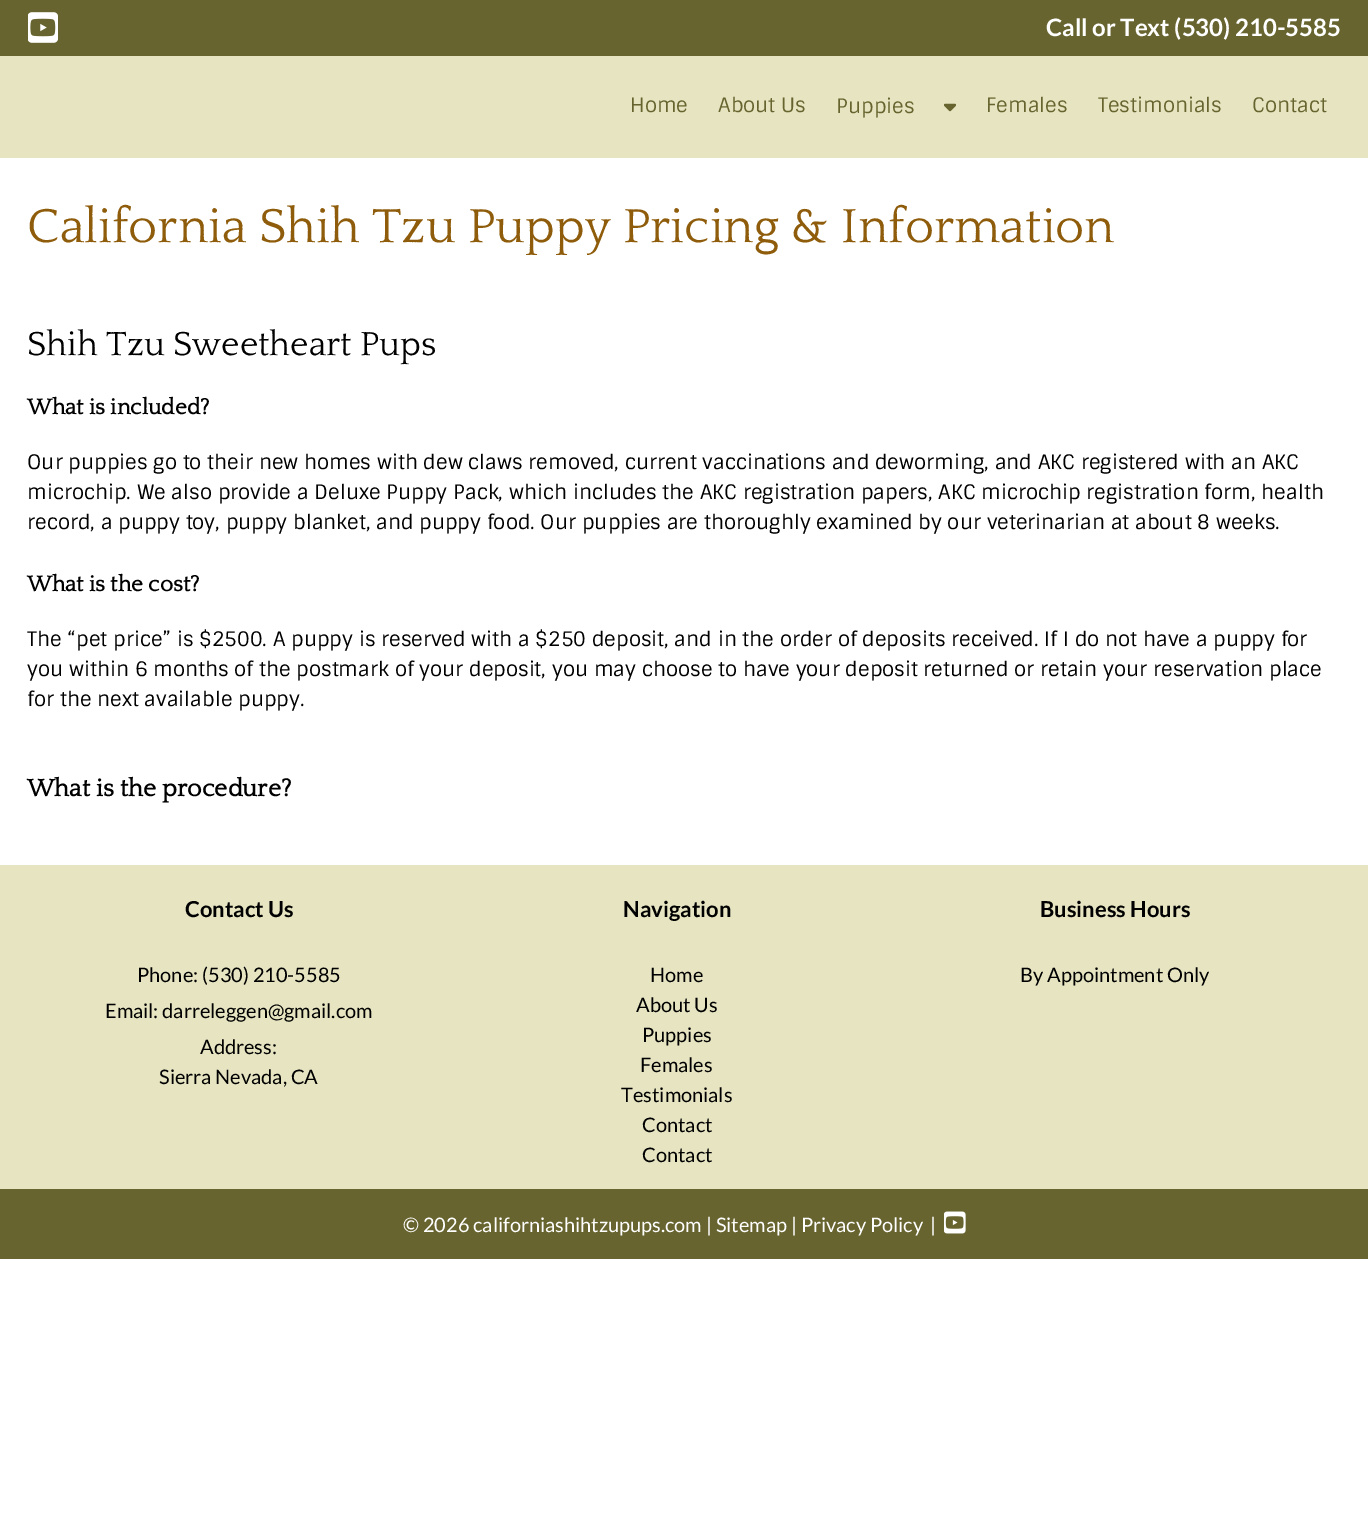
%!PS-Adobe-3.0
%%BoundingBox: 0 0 1368 1515
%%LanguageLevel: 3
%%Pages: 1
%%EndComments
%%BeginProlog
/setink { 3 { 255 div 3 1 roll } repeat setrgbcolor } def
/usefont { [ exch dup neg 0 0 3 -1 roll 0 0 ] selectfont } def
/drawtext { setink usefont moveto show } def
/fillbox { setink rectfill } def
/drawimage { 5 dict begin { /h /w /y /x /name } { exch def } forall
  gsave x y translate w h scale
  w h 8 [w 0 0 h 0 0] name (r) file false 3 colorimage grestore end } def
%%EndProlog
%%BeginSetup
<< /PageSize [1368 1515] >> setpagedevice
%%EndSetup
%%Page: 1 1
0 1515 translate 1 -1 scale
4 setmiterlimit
0 0 1368 1515 255 255 255 fillbox
0 0 1368 56 103 100 47 fillbox
(assets/img1.rgb) 28 12 30 31 drawimage
(Call or Text \(530\) 210-5585) 1046 36 /Lato-Bold 24 255 255 255 drawtext
0 56 1368 102 230 228 193 fillbox
(Home) 630 112 /Sintony-Regular 20 103 100 47 drawtext
(About Us) 718 112 /Sintony-Regular 20 103 100 47 drawtext
(Puppies) 836 113 /Sintony-Regular 20 103 100 47 drawtext
(assets/img2.rgb) 944 103 12 9 drawimage
(Females) 986 112 /Sintony-Regular 20 103 100 47 drawtext
(Testimonials) 1098 112 /Sintony-Regular 20 103 100 47 drawtext
(Contact) 1252 112 /Sintony-Regular 20 103 100 47 drawtext
(California Shih Tzu Puppy Pricing & Information) 27 242 /Quattrocento-Regular 50 142 92 10 drawtext
(Shih Tzu Sweetheart Pups) 27 355 /Quattrocento-Regular 35 0 0 0 drawtext
(What is included?) 27 414 /Quattrocento-Bold 22.5 0 0 0 drawtext
(Our puppies go to their new homes with dew claws removed, current vaccinations and deworming, and AKC registered with an AKC) 27 469 /Sintony-Regular 20 0 0 0 drawtext
(microchip. We also provide a Deluxe Puppy Pack, which includes the AKC registration papers, AKC microchip registration form, health) 27 499 /Sintony-Regular 20 0 0 0 drawtext
(record, a puppy toy, puppy blanket, and puppy food. Our puppies are thoroughly examined by our veterinarian at about 8 weeks.) 27 529 /Sintony-Regular 20 0 0 0 drawtext
(What is the cost?) 27 591 /Quattrocento-Bold 22.5 0 0 0 drawtext
(The “pet price” is $2500. A puppy is reserved with a $250 deposit, and in the order of deposits received. If I do not have a puppy for) 27 646 /Sintony-Regular 20 0 0 0 drawtext
(you within 6 months of the postmark of your deposit, you may choose to have your deposit returned or retain your reservation place) 27 676 /Sintony-Regular 20 0 0 0 drawtext
(for the next available puppy.) 27 706 /Sintony-Regular 20 0 0 0 drawtext
(What is the procedure?) 27 796 /Quattrocento-Bold 25 0 0 0 drawtext
0 865 1368 324 230 228 193 fillbox
(Contact Us) 185 917 /Lato-Bold 22 0 0 0 drawtext
(Phone: \(530\) 210-5585) 137 982 /Lato-Regular 20 0 0 0 drawtext
(Email: darreleggen@gmail.com) 105 1018 /Lato-Regular 20 0 0 0 drawtext
(Address:) 200 1054 /Lato-Regular 20 0 0 0 drawtext
(Sierra Nevada, CA) 159 1084 /Lato-Regular 20 0 0 0 drawtext
(Navigation) 623 917 /Lato-Bold 22 0 0 0 drawtext
(Home) 650 982 /Lato-Regular 20 0 0 0 drawtext
(About Us) 636 1012 /Lato-Regular 20 0 0 0 drawtext
(Puppies) 642 1042 /Lato-Regular 20 0 0 0 drawtext
(Females) 640 1072 /Lato-Regular 20 0 0 0 drawtext
(Testimonials) 621 1102 /Lato-Regular 20 0 0 0 drawtext
(Contact) 642 1132 /Lato-Regular 20 0 0 0 drawtext
(Contact) 642 1162 /Lato-Regular 20 0 0 0 drawtext
(Business Hours) 1040 917 /Lato-Bold 22 0 0 0 drawtext
(By Appointment Only) 1020 982 /Lato-Regular 20 0 0 0 drawtext
0 1189 1368 70 103 100 47 fillbox
(© 2026 californiashihtzupups.com | Sitemap | Privacy Policy) 403 1232 /Lato-Regular 20 255 255 255 drawtext
(|) 930 1232 /Lato-Regular 20 255 255 255 drawtext
(assets/img3.rgb) 944 1211 22 23 drawimage
showpage
%%EOF
